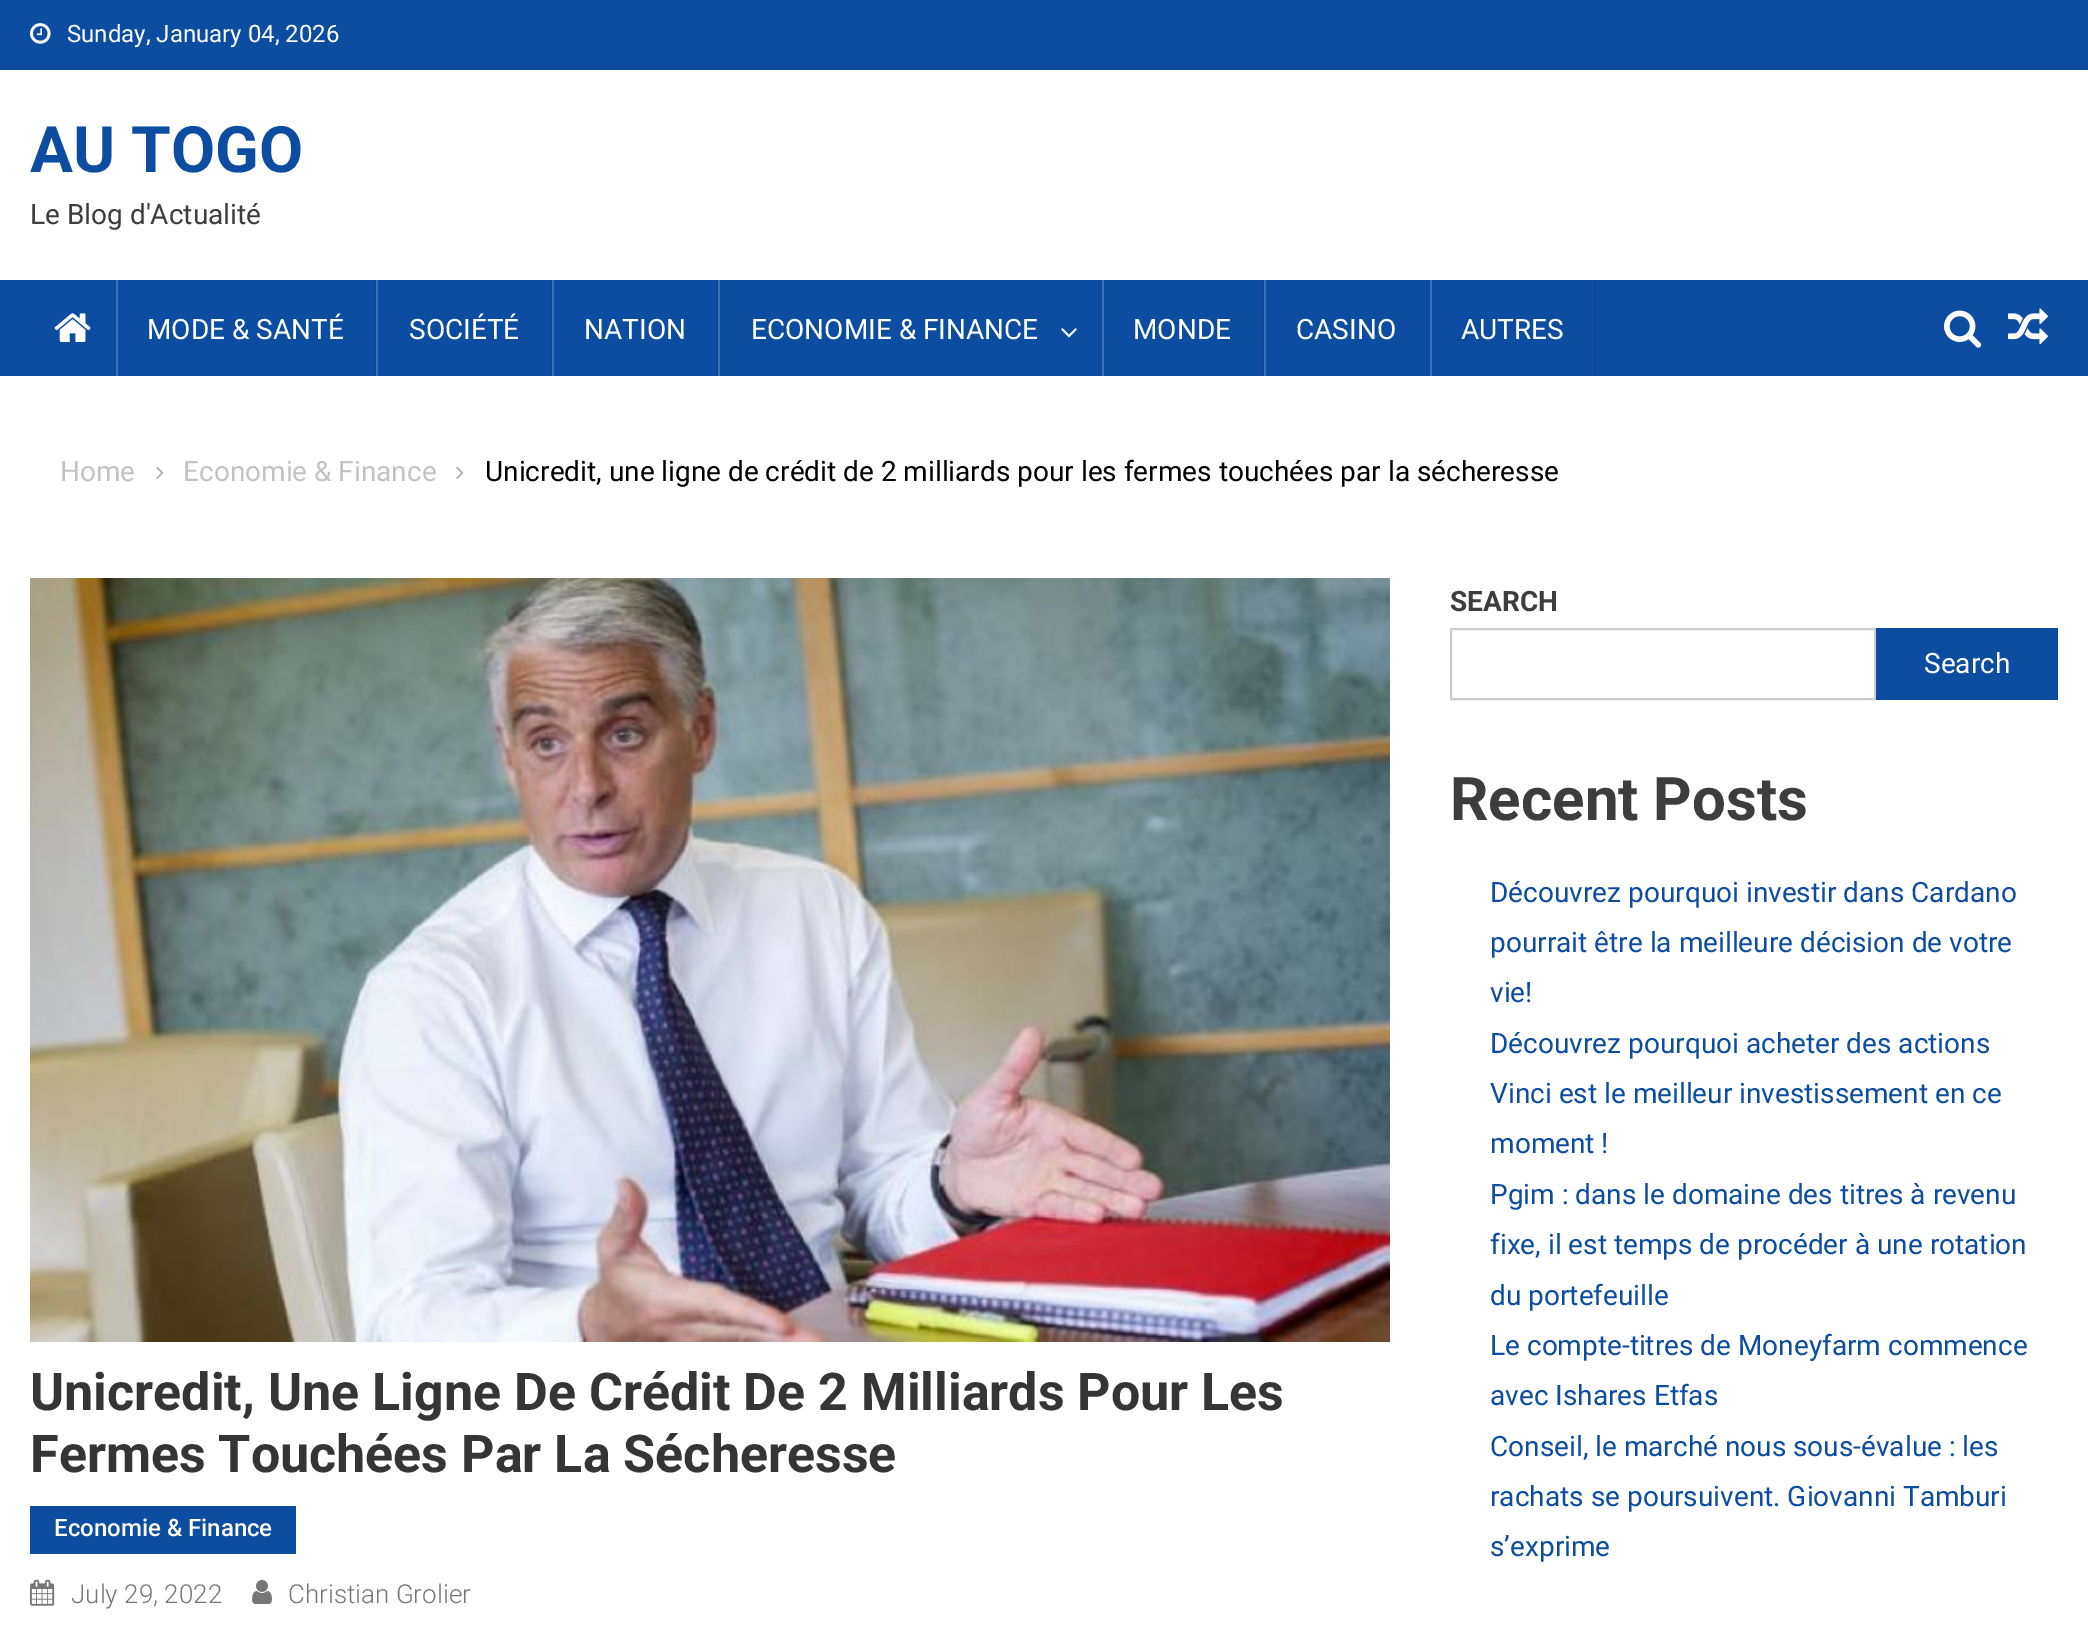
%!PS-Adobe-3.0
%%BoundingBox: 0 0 2088 1630
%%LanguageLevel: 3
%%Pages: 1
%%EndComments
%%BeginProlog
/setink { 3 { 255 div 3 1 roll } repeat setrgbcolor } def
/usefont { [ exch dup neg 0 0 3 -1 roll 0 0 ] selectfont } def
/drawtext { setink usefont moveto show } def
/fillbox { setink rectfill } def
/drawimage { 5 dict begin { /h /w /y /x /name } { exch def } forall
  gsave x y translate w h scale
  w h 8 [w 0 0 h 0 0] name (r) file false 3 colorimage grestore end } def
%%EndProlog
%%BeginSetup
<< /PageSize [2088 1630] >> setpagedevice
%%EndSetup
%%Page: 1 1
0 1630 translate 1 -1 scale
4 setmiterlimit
0 0 2088 1630 255 255 255 fillbox
0 0 2088 70 12 77 162 fillbox
(assets/img1.rgb) 30 23 21 21 drawimage
(Sunday, January 04, 2026) 67 42 /Roboto-Regular 24 255 255 255 drawtext
(AU TOGO) 30 172 /Roboto-Bold 64 12 77 162 drawtext
(Le Blog d'Actualité) 30 224 /Roboto-Regular 28 61 61 61 drawtext
0 280 2088 96 12 77 162 fillbox
(assets/img2.rgb) 54 313 37 29 drawimage
374 280 2 96 11 71 149 fillbox
116 280 2 96 61 113 181 fillbox
(MODE & SANTÉ) 147 339 /Roboto-Regular 28 255 255 255 drawtext
550 280 2 96 11 71 149 fillbox
376 280 2 96 61 113 181 fillbox
(SOCIÉTÉ) 409 339 /Roboto-Regular 28 255 255 255 drawtext
716 280 2 96 11 71 149 fillbox
552 280 2 96 61 113 181 fillbox
(NATION) 584 339 /Roboto-Regular 28 255 255 255 drawtext
1098 280 2 96 11 71 149 fillbox
718 280 2 96 61 113 181 fillbox
(ECONOMIE & FINANCE) 751 339 /Roboto-Regular 28 255 255 255 drawtext
(assets/img3.rgb) 1061 328 16 10 drawimage
1262 280 2 96 11 71 149 fillbox
1102 280 2 96 61 113 181 fillbox
(MONDE) 1133 339 /Roboto-Regular 28 255 255 255 drawtext
1426 280 2 96 11 71 149 fillbox
1264 280 2 96 61 113 181 fillbox
(CASINO) 1296 339 /Roboto-Regular 28 255 255 255 drawtext
1594 280 2 96 11 71 149 fillbox
1430 280 2 96 61 113 181 fillbox
(AUTRES) 1461 339 /Roboto-Regular 28 255 255 255 drawtext
(assets/img4.rgb) 1944 310 38 38 drawimage
(assets/img5.rgb) 2008 308 40 37 drawimage
(Home) 60 481 /Roboto-Regular 28 195 195 195 drawtext
(assets/img6.rgb) 156 466 8 13 drawimage
(Economie & Finance) 183 481 /Roboto-Regular 28 195 195 195 drawtext
(assets/img6.rgb) 456 466 8 13 drawimage
(Unicredit, une ligne de crédit de 2 milliards pour les fermes touchées par la sécheresse) 485 481 /Roboto-Regular 28 0 0 0 drawtext
(assets/img7.rgb) 30 578 1360 764 drawimage
(Unicredit, Une Ligne De Crédit De 2 Milliards Pour Les) 30 1410 /Roboto-Bold 52 53 53 53 drawtext
(Fermes Touchées Par La Sécheresse) 30 1472 /Roboto-Bold 52 53 53 53 drawtext
30 1506 266 48 12 77 162 fillbox
(Economie & Finance) 54 1536 /Roboto-Medium 24 255 255 255 drawtext
(assets/img8.rgb) 30 1579 25 27 drawimage
(July 29, 2022) 71 1603 /Roboto-Light 26 118 118 118 drawtext
(assets/img9.rgb) 252 1580 20 24 drawimage
(Christian Grolier) 288 1603 /Roboto-Light 26 118 118 118 drawtext
(SEARCH) 1450 611 /Roboto-Bold 28 61 61 61 drawtext
204 204 204 setink
2 setlinewidth
1451 629 424 70 rectstroke
1876 628 182 72 12 77 162 fillbox
(Search) 1924 673 /Roboto-Regular 28 255 255 255 drawtext
(Recent Posts) 1450 820 /Roboto-Bold 60 61 61 61 drawtext
(Découvrez pourquoi investir dans Cardano) 1490 902 /Roboto-Regular 28 12 77 162 drawtext
(pourrait être la meilleure décision de votre) 1490 952 /Roboto-Regular 28 12 77 162 drawtext
(vie!) 1490 1002 /Roboto-Regular 28 12 77 162 drawtext
(Découvrez pourquoi acheter des actions) 1490 1053 /Roboto-Regular 28 12 77 162 drawtext
(Vinci est le meilleur investissement en ce) 1490 1103 /Roboto-Regular 28 12 77 162 drawtext
(moment !) 1490 1153 /Roboto-Regular 28 12 77 162 drawtext
(Pgim : dans le domaine des titres à revenu) 1490 1204 /Roboto-Regular 28 12 77 162 drawtext
(fixe, il est temps de procéder à une rotation) 1490 1254 /Roboto-Regular 28 12 77 162 drawtext
(du portefeuille) 1490 1305 /Roboto-Regular 28 12 77 162 drawtext
(Le compte-titres de Moneyfarm commence) 1490 1355 /Roboto-Regular 28 12 77 162 drawtext
(avec Ishares Etfas) 1490 1405 /Roboto-Regular 28 12 77 162 drawtext
(Conseil, le marché nous sous-évalue : les) 1490 1456 /Roboto-Regular 28 12 77 162 drawtext
(rachats se poursuivent. Giovanni Tamburi) 1490 1506 /Roboto-Regular 28 12 77 162 drawtext
(s’exprime) 1490 1556 /Roboto-Regular 28 12 77 162 drawtext
showpage
%%EOF
